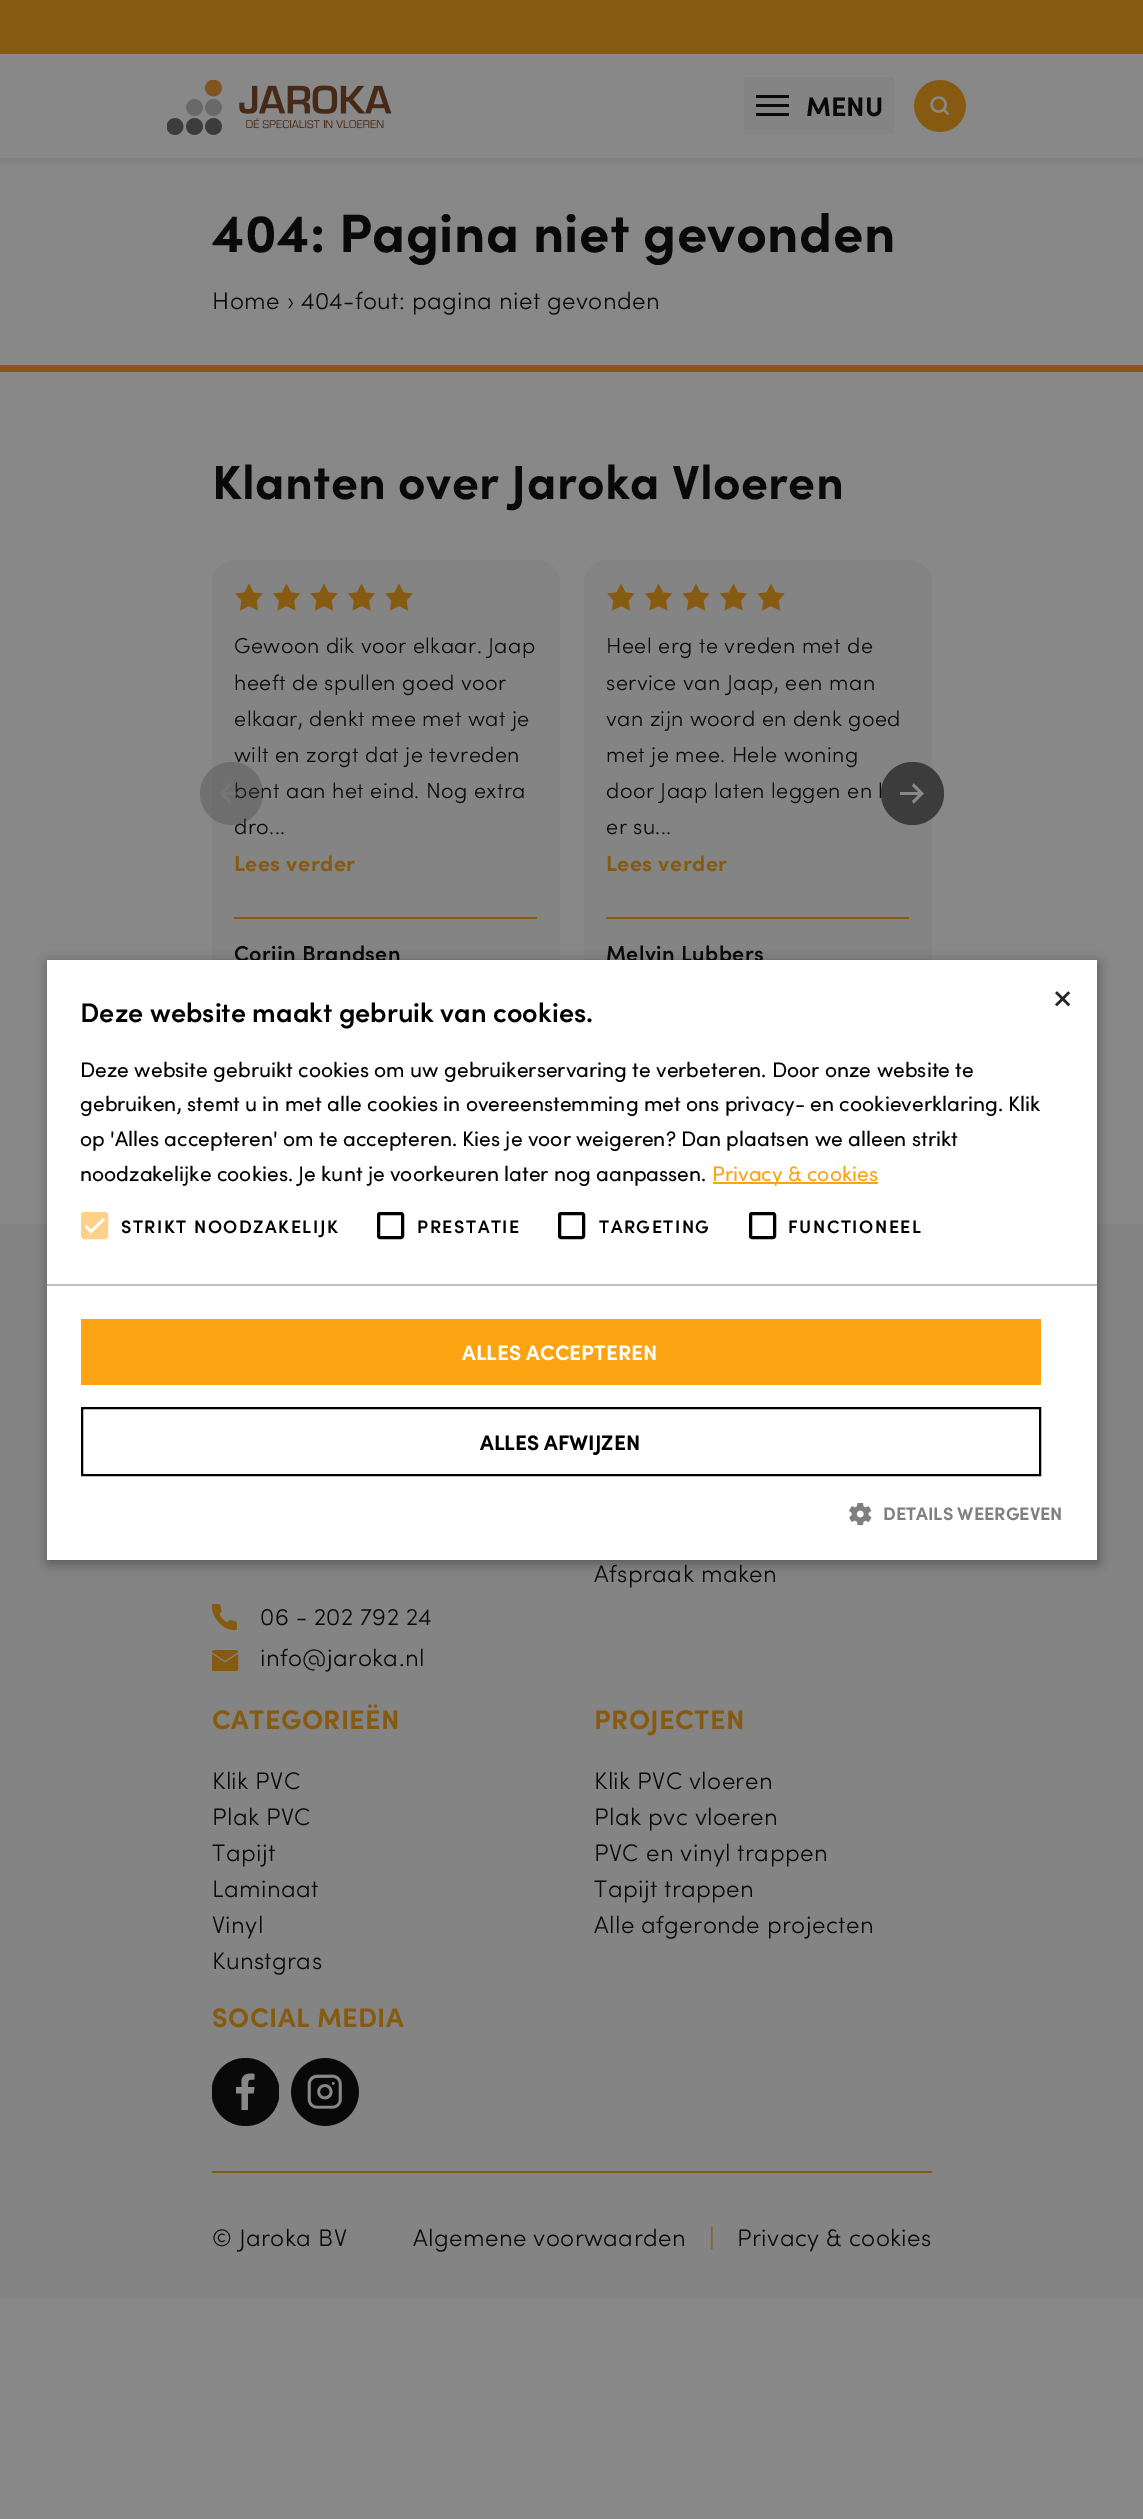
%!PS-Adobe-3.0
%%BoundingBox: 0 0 1143 2519
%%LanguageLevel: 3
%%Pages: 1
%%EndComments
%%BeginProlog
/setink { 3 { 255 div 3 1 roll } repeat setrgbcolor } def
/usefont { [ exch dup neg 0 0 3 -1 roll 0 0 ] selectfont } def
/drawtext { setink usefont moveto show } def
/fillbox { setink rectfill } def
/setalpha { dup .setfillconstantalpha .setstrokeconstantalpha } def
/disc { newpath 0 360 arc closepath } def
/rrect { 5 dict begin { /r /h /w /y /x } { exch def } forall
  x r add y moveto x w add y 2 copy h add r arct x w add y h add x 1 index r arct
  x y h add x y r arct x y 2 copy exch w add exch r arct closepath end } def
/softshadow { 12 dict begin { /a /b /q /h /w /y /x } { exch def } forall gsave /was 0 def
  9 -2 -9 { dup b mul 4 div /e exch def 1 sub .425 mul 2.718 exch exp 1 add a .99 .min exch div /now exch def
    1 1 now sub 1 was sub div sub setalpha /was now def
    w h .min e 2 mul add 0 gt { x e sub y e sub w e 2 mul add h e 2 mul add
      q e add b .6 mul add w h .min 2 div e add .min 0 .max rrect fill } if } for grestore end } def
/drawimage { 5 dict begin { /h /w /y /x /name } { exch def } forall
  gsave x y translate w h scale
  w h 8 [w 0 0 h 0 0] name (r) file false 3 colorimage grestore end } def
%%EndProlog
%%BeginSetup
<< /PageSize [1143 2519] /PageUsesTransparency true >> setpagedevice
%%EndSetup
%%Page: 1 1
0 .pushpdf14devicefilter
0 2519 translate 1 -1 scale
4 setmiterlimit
0 0 1143 2519 136 136 136 fillbox
9 9 9 setink
0 5 1143 157 0 4 0.1 softshadow
0 54 1143 104 136 136 136 fillbox
0 0 1143 54 135 90 17 fillbox
(assets/img1.rgb) 167 80 225 55 drawimage
744 77 150 57 132 132 132 fillbox
756 95 33 3 9 9 9 fillbox
756 104 33 3 9 9 9 fillbox
(MENU) 806 116 /Sofia-Bold 27 9 9 9 drawtext
756 113 33 3 9 9 9 fillbox
(assets/img2.rgb) 914 80 52 52 drawimage
/Sofia-Bold 54 usefont
212 252 moveto 0.4 0 (404: Pagina niet gevonden) ashow
/Sofia-Light 24 usefont
212 309 moveto 0.4 0 (Home › 404-fout: pagina niet gevonden) ashow
0 365 1143 7 135 90 17 fillbox
/Sofia-Bold 48 usefont
9 9 9 setink
212 499 moveto 0.4 0 (Klanten over Jaroka Vloeren) ashow
132 132 132 setink
212 560 348 468 23 rrect fill
/Sofia-Light 21.6 usefont
9 9 9 setink
234 762 moveto 0.4 0 (wilt en zorgt dat je tevreden) ashow
234 798 moveto 0.4 0 (bent aan het eind. Nog extra) ashow
234 834 moveto 0.4 0 (dro...) ashow
0.3 setalpha
60 60 60 setink
231.5 793.5 31.5 disc fill
1 setalpha
(assets/img3.rgb) 219 783 24 21 drawimage
135 90 17 setink
249 583.5 moveto 253.5 592.5 lineto 262.5 593.5 lineto 256.5 600.5 lineto 258 610.5 lineto 249 606 lineto 240 610.5 lineto 241.5 600.5 lineto 235.5 593.5 lineto 244.5 592.5 lineto closepath fill
286.5 583.5 moveto 291 592.5 lineto 300 593.5 lineto 294 600.5 lineto 295.5 610.5 lineto 286.5 606 lineto 277.5 610.5 lineto 279 600.5 lineto 273 593.5 lineto 282 592.5 lineto closepath fill
324 583.5 moveto 328.5 592.5 lineto 337.5 593.5 lineto 331.5 600.5 lineto 333 610.5 lineto 324 606 lineto 315 610.5 lineto 316.5 600.5 lineto 310.5 593.5 lineto 319.5 592.5 lineto closepath fill
361.5 583.5 moveto 366 592.5 lineto 375 593.5 lineto 369 600.5 lineto 370.5 610.5 lineto 361.5 606 lineto 352.5 610.5 lineto 354 600.5 lineto 348 593.5 lineto 357 592.5 lineto closepath fill
399 583.5 moveto 403.5 592.5 lineto 412.5 593.5 lineto 406.5 600.5 lineto 408 610.5 lineto 399 606 lineto 390 610.5 lineto 391.5 600.5 lineto 385.5 593.5 lineto 394.5 592.5 lineto closepath fill
9 9 9 setink
234 653 moveto 0.4 0 (Gewoon dik voor elkaar. Jaap) ashow
234 690 moveto 0.4 0 (heeft de spullen goed voor) ashow
234 726 moveto 0.4 0 (elkaar, denkt mee met wat je) ashow
/Sofia-Bold 21.6 usefont
135 90 17 setink
234 871 moveto 0.4 0 (Lees verder) ashow
234 917 303 2 135 90 17 fillbox
/Sofia-SemiBold 21.6 usefont
9 9 9 setink
234 961 moveto 0.4 0 (Corijn Brandsen) ashow
132 132 132 setink
584 560 348 468 23 rrect fill
135 90 17 setink
621 583.5 moveto 625.5 592.5 lineto 634.5 593.5 lineto 628.5 600.5 lineto 630 610.5 lineto 621 606 lineto 612 610.5 lineto 613.5 600.5 lineto 607.5 593.5 lineto 616.5 592.5 lineto closepath fill
658.5 583.5 moveto 663 592.5 lineto 672 593.5 lineto 666 600.5 lineto 667.5 610.5 lineto 658.5 606 lineto 649.5 610.5 lineto 651 600.5 lineto 645 593.5 lineto 654 592.5 lineto closepath fill
696 583.5 moveto 700.5 592.5 lineto 709.5 593.5 lineto 703.5 600.5 lineto 705 610.5 lineto 696 606 lineto 687 610.5 lineto 688.5 600.5 lineto 682.5 593.5 lineto 691.5 592.5 lineto closepath fill
733.5 583.5 moveto 738 592.5 lineto 747 593.5 lineto 741 600.5 lineto 742.5 610.5 lineto 733.5 606 lineto 724.5 610.5 lineto 726 600.5 lineto 720 593.5 lineto 729 592.5 lineto closepath fill
771 583.5 moveto 775.5 592.5 lineto 784.5 593.5 lineto 778.5 600.5 lineto 780 610.5 lineto 771 606 lineto 762 610.5 lineto 763.5 600.5 lineto 757.5 593.5 lineto 766.5 592.5 lineto closepath fill
/Sofia-Light 21.6 usefont
9 9 9 setink
606 653 moveto 0.4 0 (Heel erg te vreden met de) ashow
606 690 moveto 0.4 0 (service van Jaap, een man) ashow
606 726 moveto 0.4 0 (van zijn woord en denk goed) ashow
606 762 moveto 0.4 0 (met je mee. Hele woning) ashow
606 798 moveto 0.4 0 (door Jaap laten leggen en l) ashow
606 834 moveto 0.4 0 (er su...) ashow
/Sofia-Bold 21.6 usefont
135 90 17 setink
606 871 moveto 0.4 0 (Lees verder) ashow
606 917 303 2 135 90 17 fillbox
/Sofia-SemiBold 21.6 usefont
9 9 9 setink
606 961 moveto 0.4 0 (Melvin Lubbers) ashow
60 60 60 setink
912.5 793.5 31.5 disc fill
(assets/img4.rgb) 900 783 24 21 drawimage
0 1224 1143 1074 132 132 132 fillbox
0 0 0 setink
48 963 1050 600 0 6 0.35 softshadow
47 960 1050 600 255 255 255 fillbox
(×) 1052 1011 /Sofia-Light 45 38 38 38 drawtext
(Deze website maakt gebruik van cookies.) 80 1022 /Sofia-SemiBold 27 0 0 0 drawtext
(Deze website gebruikt cookies om uw gebruikerservaring te verbeteren. Door onze website te) 80 1077 /Sofia-Regular 21 0 0 0 drawtext
(gebruiken, stemt u in met alle cookies in overeenstemming met ons privacy- en cookieverklaring. Klik) 80 1111 /Sofia-Regular 21 0 0 0 drawtext
(op 'Alles accepteren' om te accepteren. Kies je voor weigeren? Dan plaatsen we alleen strikt) 80 1146 /Sofia-Regular 21 0 0 0 drawtext
(noodzakelijke cookies. Je kunt je voorkeuren later nog aanpassen.) 80 1181 /Sofia-Regular 21 0 0 0 drawtext
713 1182 165 2 252 163 17 fillbox
(Privacy & cookies) 712 1181 /Sofia-Regular 21 252 163 17 drawtext
254 209 136 setink
82.5 1213.5 24 24 1.5 rrect gsave fill grestore
3 setlinewidth
stroke
255 255 255 setink
2.7 setlinewidth
85.5 1226 moveto 91 1231.5 lineto 104 1219 lineto stroke
/Sofia-SemiBold 18 usefont
0 0 0 setink
121 1233 moveto 1.5 0 (STRIKT NOODZAKELIJK) ashow
3 setlinewidth
378.5 1213.5 24 24 1.5 rrect stroke
417 1233 moveto 1.5 0 (PRESTATIE) ashow
559.5 1213.5 24 24 1.5 rrect stroke
599 1233 moveto 1.5 0 (TARGETING) ashow
750.5 1213.5 24 24 1.5 rrect stroke
788 1233 moveto 1.5 0 (FUNCTIONEEL) ashow
47 1284 1050 2 191 191 191 fillbox
81 1319 960 66 252 163 17 fillbox
(ALLES ACCEPTEREN) 462 1360 /Sofia-Bold 21 255 255 255 drawtext
0 0 0 setink
2 setlinewidth
82 1408 958 67 rectstroke
(ALLES AFWIJZEN) 480 1450 /Sofia-Bold 21 0 0 0 drawtext
(assets/img5.rgb) 849 1503 23 23 drawimage
(DETAILS WEERGEVEN) 883 1520 /Sofia-Bold 18 128 128 128 drawtext
/Sofia-Light 24 usefont
9 9 9 setink
594 1582 moveto 0.4 0 (Afspraak maken) ashow
(assets/img6.rgb) 212 1604 25 27 drawimage
260 1625 moveto 0.4 0 (06 - 202 792 24) ashow
(assets/img7.rgb) 212 1650 27 21 drawimage
260 1666 moveto 0.4 0 (info@jaroka.nl) ashow
/Sofia-Bold 27 usefont
135 90 17 setink
212 1729 moveto 0.4 0 (CATEGORIEËN) ashow
/Sofia-Light 24 usefont
9 9 9 setink
212 1789 moveto 0.4 0 (Klik PVC) ashow
212 1825 moveto 0.4 0 (Plak PVC) ashow
212 1861 moveto 0.4 0 (Tapijt) ashow
212 1897 moveto 0.4 0 (Laminaat) ashow
212 1933 moveto 0.4 0 (Vinyl) ashow
212 1969 moveto 0.4 0 (Kunstgras) ashow
/Sofia-Bold 27 usefont
135 90 17 setink
594 1729 moveto 0.4 0 (PROJECTEN) ashow
/Sofia-Light 24 usefont
9 9 9 setink
594 1789 moveto 0.4 0 (Klik PVC vloeren) ashow
594 1825 moveto 0.4 0 (Plak pvc vloeren) ashow
594 1861 moveto 0.4 0 (PVC en vinyl trappen) ashow
594 1897 moveto 0.4 0 (Tapijt trappen) ashow
594 1933 moveto 0.4 0 (Alle afgeronde projecten) ashow
/Sofia-Bold 27 usefont
135 90 17 setink
212 2027 moveto 0.4 0 (SOCIAL MEDIA) ashow
gsave
212 2058 67 68 rectclip
9 9 9 setink
245.5 2092 34 disc fill
grestore
136 136 136 setink
254.5 2074 moveto 254.5 2079.5 lineto 247.5 2079.5 248 2080 248 2087 curveto 254.5 2087 lineto 253.5 2093.5 lineto 248 2093.5 lineto 248 2110 lineto 241.5 2110 lineto 241.5 2093.5 lineto 236 2093.5 lineto 236 2087 lineto 241.5 2087 lineto 241.5 2080.5 lineto 242.5 2073.5 249 2073 254.5 2074 curveto fill
(assets/img8.rgb) 291 2058 68 68 drawimage
212 2171 720 2 135 90 17 fillbox
/Sofia-Light 24 usefont
9 9 9 setink
212 2246 moveto 0.4 0 (© Jaroka BV) ashow
413 2246 moveto 0.4 0 (Algemene voorwaarden) ashow
135 90 17 setink
709 2246 moveto 0.4 0 (|) ashow
9 9 9 setink
737 2246 moveto 0.4 0 (Privacy & cookies) ashow
.poppdf14devicefilter showpage
%%EOF
